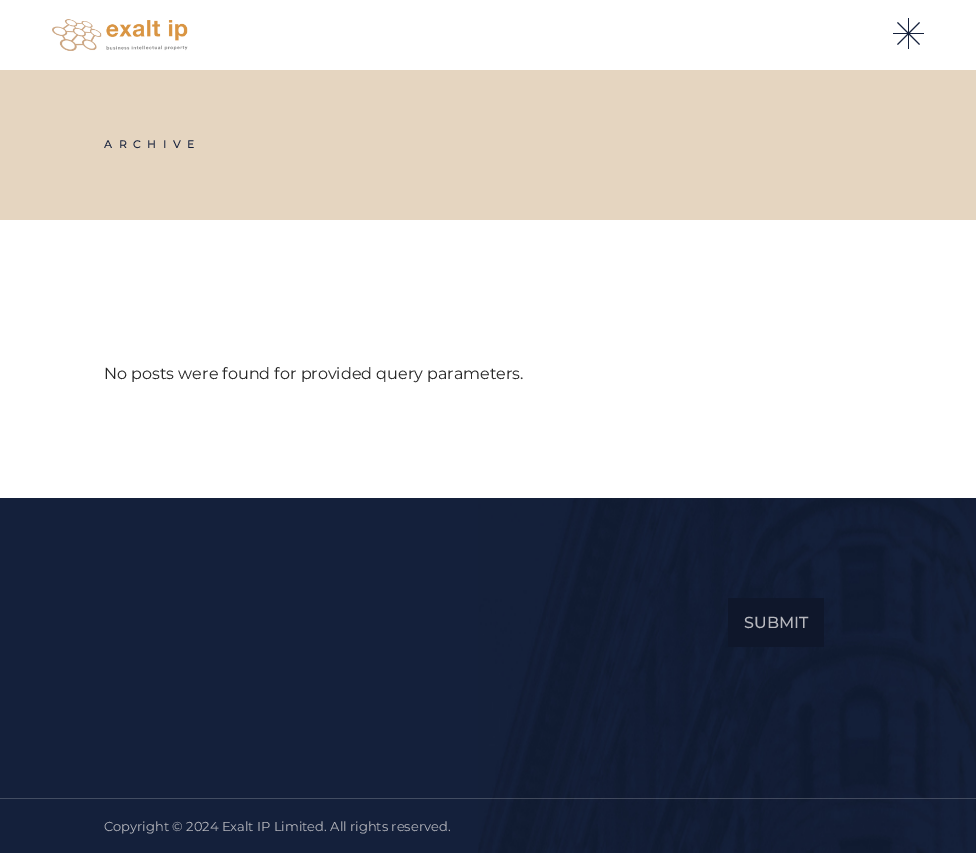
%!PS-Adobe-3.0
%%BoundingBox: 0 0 976 853
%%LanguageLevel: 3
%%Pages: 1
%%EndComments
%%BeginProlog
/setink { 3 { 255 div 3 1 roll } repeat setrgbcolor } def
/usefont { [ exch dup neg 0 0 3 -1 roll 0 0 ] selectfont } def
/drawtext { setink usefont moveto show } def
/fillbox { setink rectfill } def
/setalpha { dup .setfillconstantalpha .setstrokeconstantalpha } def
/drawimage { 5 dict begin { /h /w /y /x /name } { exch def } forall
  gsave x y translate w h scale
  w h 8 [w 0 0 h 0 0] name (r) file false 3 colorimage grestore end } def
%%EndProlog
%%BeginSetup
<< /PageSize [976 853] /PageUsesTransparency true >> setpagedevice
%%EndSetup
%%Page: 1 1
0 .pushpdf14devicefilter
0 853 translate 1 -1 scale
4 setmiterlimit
0 0 976 853 255 255 255 fillbox
(assets/img1.rgb) 52 19 136 32 drawimage
(assets/img2.rgb) 893 18 31 31 drawimage
0 70 976 150 229 213 192 fillbox
/Montserrat-Medium 11 usefont
20 32 59 setink
104 148 moveto 6.5 0 (ARCHIVE) ashow
(No posts were found for provided query parameters.) 104 379 /Montserrat-Regular 16 38 38 38 drawtext
0 498 976 355 20 32 59 fillbox
(assets/img3.rgb) 478 498 498 355 drawimage
728 598 96 49 15 23 43 fillbox
(SUBMIT) 744 628 /Montserrat-Medium 16 183 184 190 drawtext
0.2 setalpha
0 798 976 1 255 255 255 fillbox
1 setalpha
(Copyright © 2024 Exalt IP Limited. All rights reserved.) 104 831 /Montserrat-Regular 13 183 184 190 drawtext
.poppdf14devicefilter showpage
%%EOF
